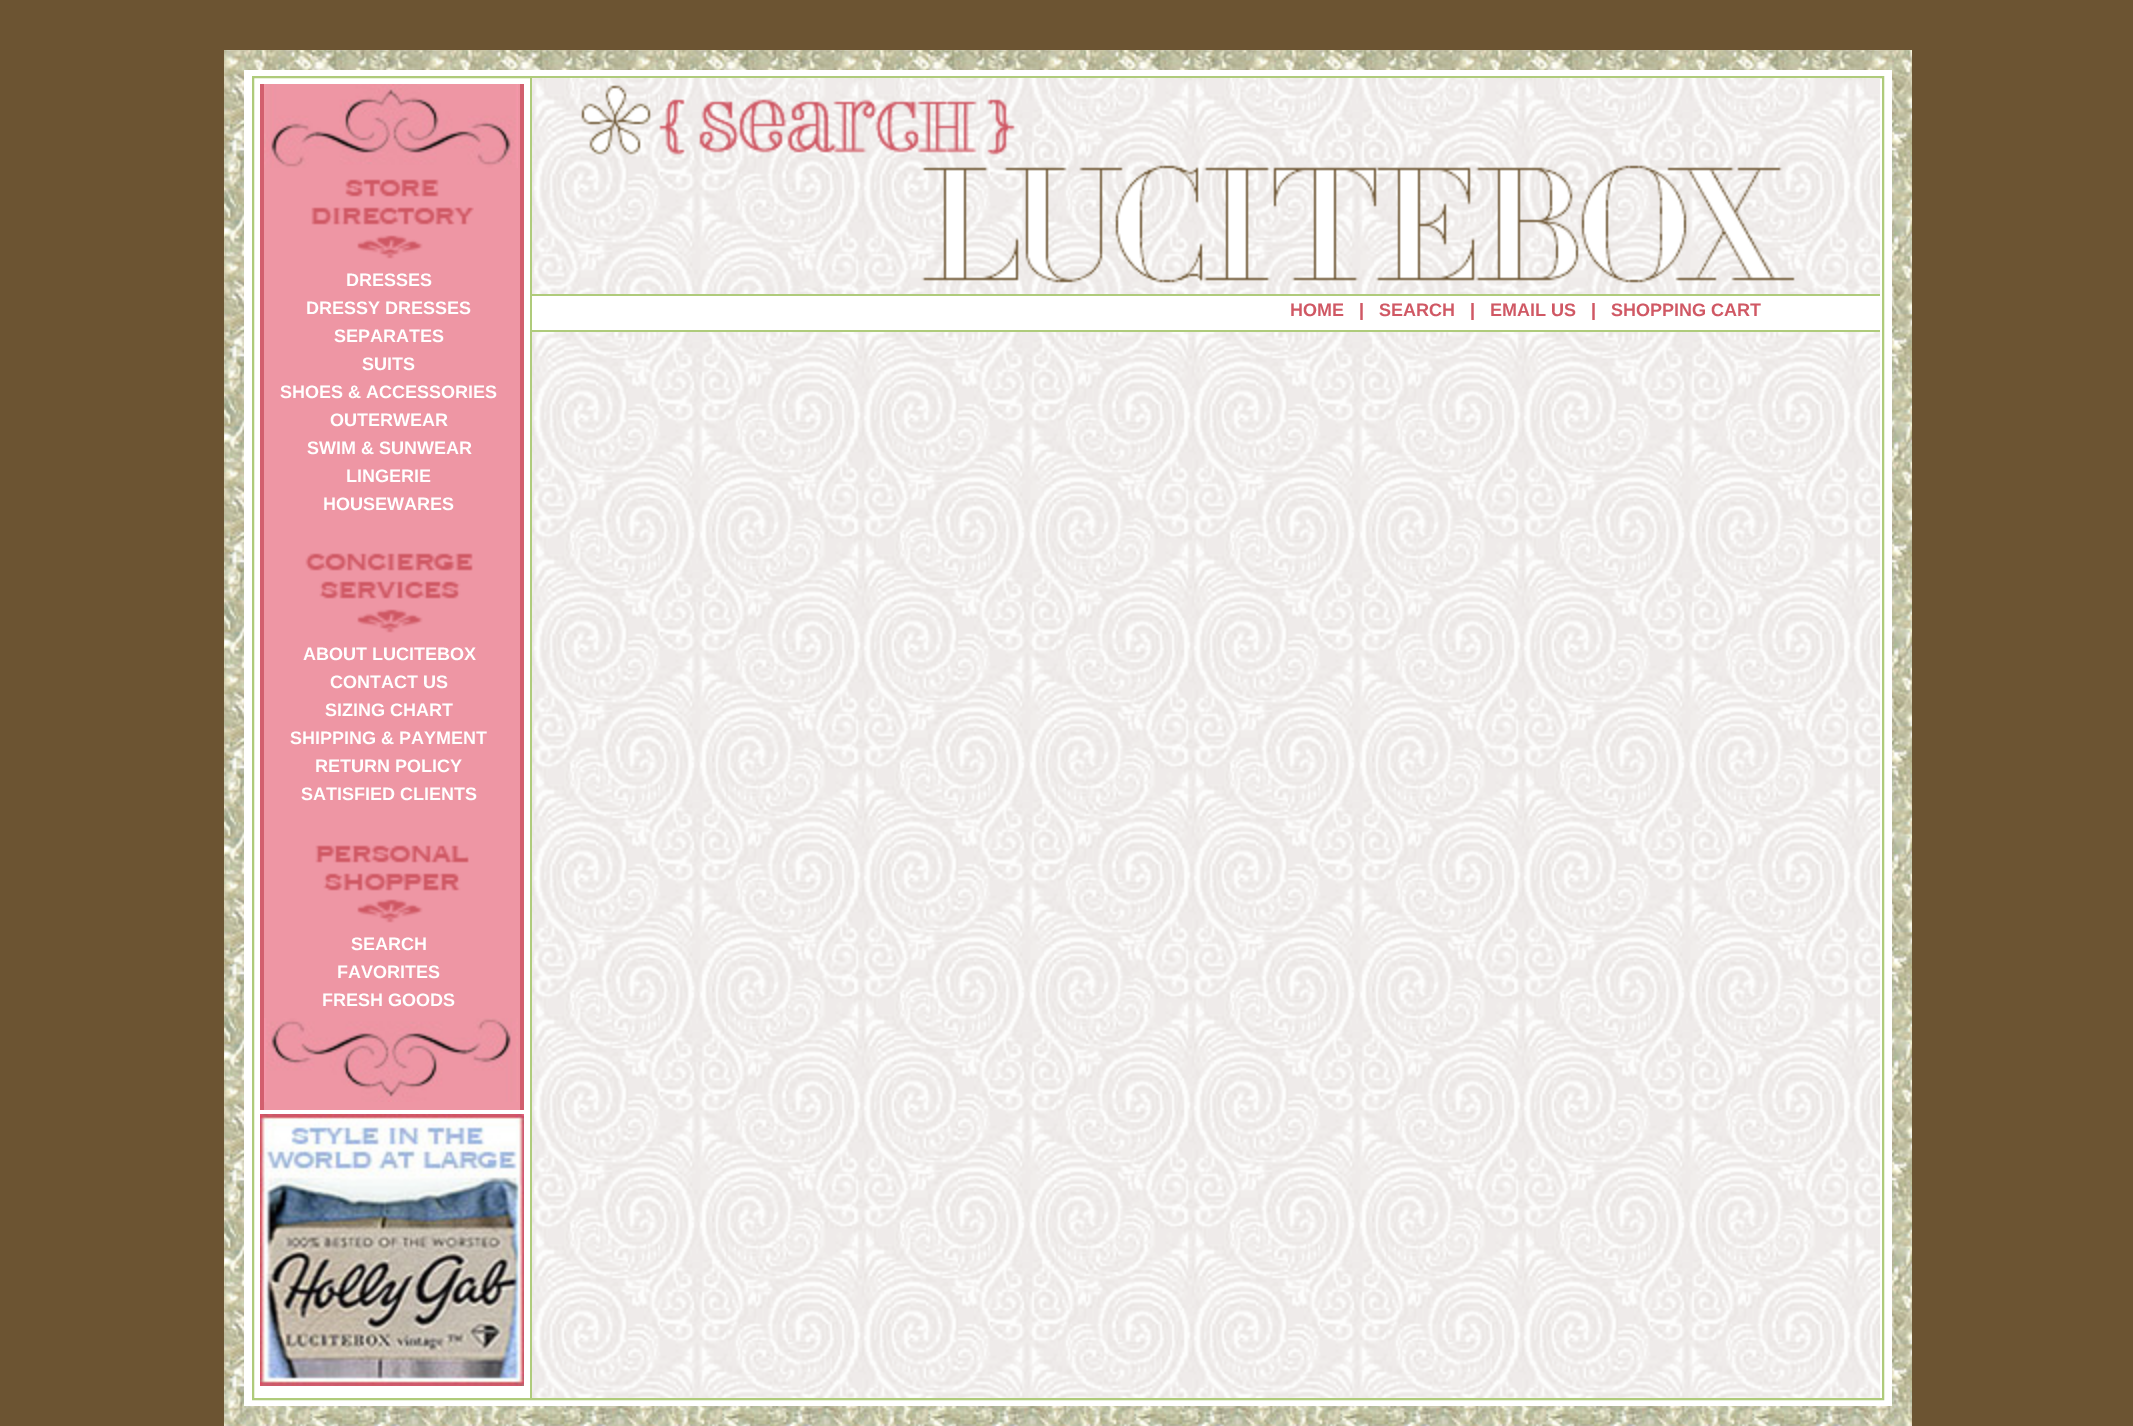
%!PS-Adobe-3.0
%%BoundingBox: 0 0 2133 1426
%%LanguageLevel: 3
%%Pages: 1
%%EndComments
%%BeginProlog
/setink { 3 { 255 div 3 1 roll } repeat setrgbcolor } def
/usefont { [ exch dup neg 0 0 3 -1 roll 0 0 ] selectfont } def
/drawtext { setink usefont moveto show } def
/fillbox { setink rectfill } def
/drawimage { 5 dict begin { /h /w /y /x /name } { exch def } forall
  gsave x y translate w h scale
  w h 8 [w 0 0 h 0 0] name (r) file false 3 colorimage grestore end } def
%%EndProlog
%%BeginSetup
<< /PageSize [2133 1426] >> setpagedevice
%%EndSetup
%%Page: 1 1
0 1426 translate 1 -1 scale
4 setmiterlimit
0 0 2133 1426 108 84 50 fillbox
(assets/img1.rgb) 224 50 1688 1376 drawimage
244 70 1648 1336 255 255 255 fillbox
175 203 123 setink
2 setlinewidth
253 77 1630 1322 rectstroke
264 84 256 1026 238 150 164 fillbox
520 84 4 1026 210 95 110 fillbox
260 84 4 1026 210 95 110 fillbox
(assets/img2.rgb) 264 84 254 84 drawimage
(assets/img3.rgb) 311 179 163 80 drawimage
(DRESSES) 346 286 /LiberationSans-Bold 18 255 255 255 drawtext
(DRESSY DRESSES) 306 314 /LiberationSans-Bold 18 255 255 255 drawtext
(SEPARATES) 334 342 /LiberationSans-Bold 18 255 255 255 drawtext
(SUITS) 362 370 /LiberationSans-Bold 18 255 255 255 drawtext
(SHOES & ACCESSORIES) 280 398 /LiberationSans-Bold 18 255 255 255 drawtext
(OUTERWEAR) 330 426 /LiberationSans-Bold 18 255 255 255 drawtext
(SWIM & SUNWEAR) 307 454 /LiberationSans-Bold 18 255 255 255 drawtext
(LINGERIE) 346 482 /LiberationSans-Bold 18 255 255 255 drawtext
(HOUSEWARES) 323 510 /LiberationSans-Bold 18 255 255 255 drawtext
(assets/img4.rgb) 305 553 168 80 drawimage
(ABOUT LUCITEBOX) 303 660 /LiberationSans-Bold 18 255 255 255 drawtext
(CONTACT US) 330 688 /LiberationSans-Bold 18 255 255 255 drawtext
(SIZING CHART) 325 716 /LiberationSans-Bold 18 255 255 255 drawtext
(SHIPPING & PAYMENT) 290 744 /LiberationSans-Bold 18 255 255 255 drawtext
(RETURN POLICY) 315 772 /LiberationSans-Bold 18 255 255 255 drawtext
(SATISFIED CLIENTS) 301 800 /LiberationSans-Bold 18 255 255 255 drawtext
(assets/img5.rgb) 315 845 154 78 drawimage
(SEARCH) 351 950 /LiberationSans-Bold 18 255 255 255 drawtext
(FAVORITES) 337 978 /LiberationSans-Bold 18 255 255 255 drawtext
(FRESH GOODS) 322 1006 /LiberationSans-Bold 18 255 255 255 drawtext
(assets/img6.rgb) 264 1018 254 84 drawimage
(assets/img7.rgb) 260 1114 264 272 drawimage
(assets/img8.rgb) 532 78 1348 1320 drawimage
530 78 2 1320 175 203 123 fillbox
(assets/img9.rgb) 581 85 1214 198 drawimage
532 296 1348 34 255 255 255 fillbox
532 294 1348 2 175 203 123 fillbox
532 330 1348 2 175 203 123 fillbox
(HOME) 1290 316 /LiberationSans-Bold 18 208 88 100 drawtext
(|) 1359 316 /LiberationSans-Bold 18 208 88 100 drawtext
(SEARCH) 1379 316 /LiberationSans-Bold 18 208 88 100 drawtext
(|) 1470 316 /LiberationSans-Bold 18 208 88 100 drawtext
(EMAIL US) 1490 316 /LiberationSans-Bold 18 208 88 100 drawtext
(|) 1591 316 /LiberationSans-Bold 18 208 88 100 drawtext
(SHOPPING CART) 1611 316 /LiberationSans-Bold 18 208 88 100 drawtext
showpage
%%EOF
